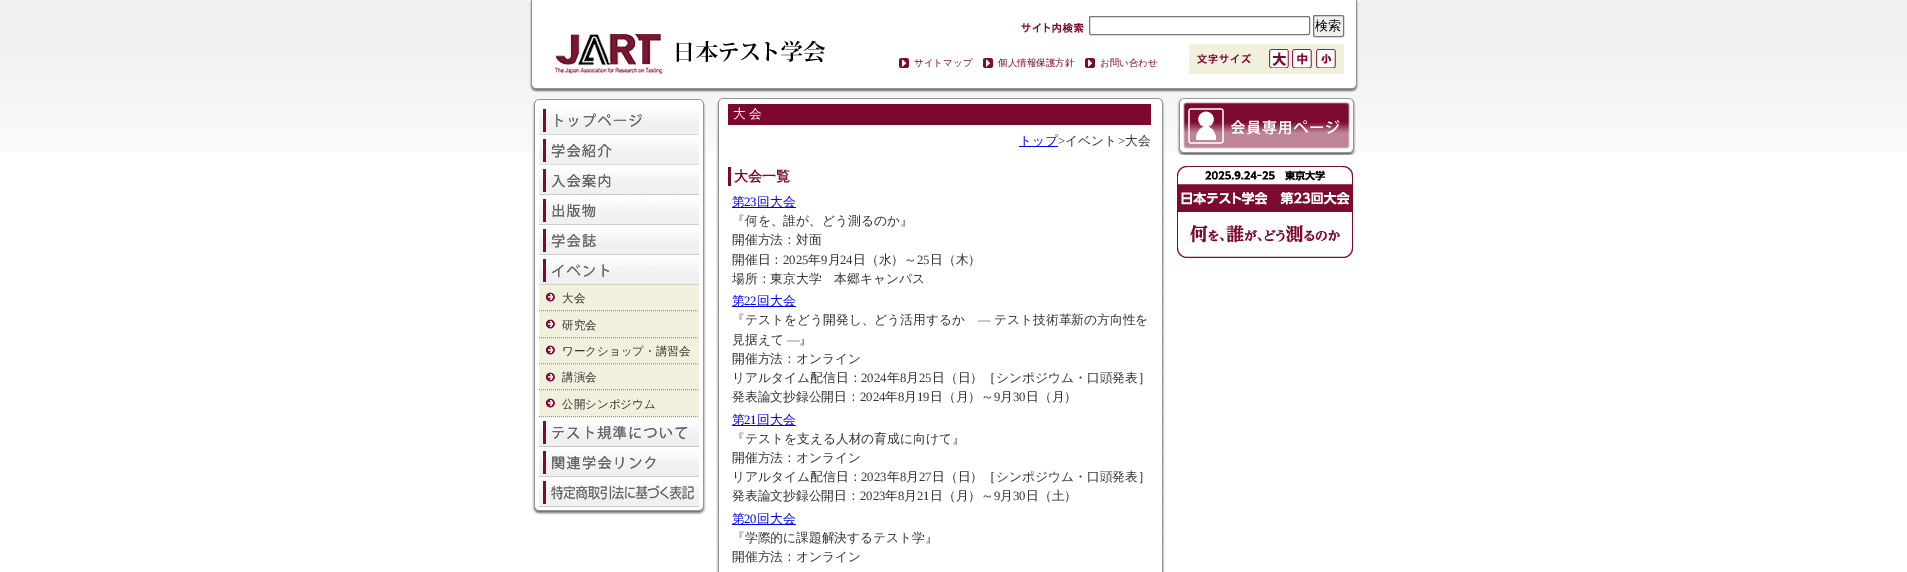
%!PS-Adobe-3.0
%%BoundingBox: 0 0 1907 572
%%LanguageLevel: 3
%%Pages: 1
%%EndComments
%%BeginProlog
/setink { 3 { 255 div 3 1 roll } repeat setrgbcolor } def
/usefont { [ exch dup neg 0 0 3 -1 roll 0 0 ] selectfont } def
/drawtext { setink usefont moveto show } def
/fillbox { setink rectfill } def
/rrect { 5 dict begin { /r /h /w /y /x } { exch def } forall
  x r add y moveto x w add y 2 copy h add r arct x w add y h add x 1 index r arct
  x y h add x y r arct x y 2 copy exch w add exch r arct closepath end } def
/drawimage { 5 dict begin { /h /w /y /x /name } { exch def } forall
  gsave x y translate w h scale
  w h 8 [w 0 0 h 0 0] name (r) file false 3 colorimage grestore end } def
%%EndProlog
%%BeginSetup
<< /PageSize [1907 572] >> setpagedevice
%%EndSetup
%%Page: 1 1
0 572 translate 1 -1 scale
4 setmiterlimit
0 0 1907 572 255 255 255 fillbox
(assets/img1.rgb) 0 0 1907 152 drawimage
(assets/img2.rgb) 529 0 830 93 drawimage
(assets/img3.rgb) 1021 23 63 10 drawimage
118 118 118 setink
1089.5 16.5 220 18 1.5 rrect stroke
239 239 239 setink
1313.5 15.5 30 21 1.5 rrect gsave fill grestore
118 118 118 setink
stroke
(検索) 1315 30 /WenQuanYiZenHei-Medium 13 0 0 0 drawtext
1189 44 155 30 240 240 220 fillbox
(assets/img4.rgb) 1197 53 54 11 drawimage
(assets/img5.rgb) 1269 49 20 19 drawimage
(assets/img6.rgb) 1292 49 20 19 drawimage
(assets/img7.rgb) 1316 49 20 19 drawimage
(assets/img8.rgb) 555 34 270 40 drawimage
(assets/img9.rgb) 899 58 10 10 drawimage
(サイトマップ) 914 66 /WenQuanYiZenHei-Medium 9.5 125 8 47 drawtext
(assets/img9.rgb) 983 58 10 10 drawimage
(個人情報保護方針) 998 66 /WenQuanYiZenHei-Medium 9.5 125 8 47 drawtext
(assets/img9.rgb) 1085 58 10 10 drawimage
(お問い合わせ) 1100 66 /WenQuanYiZenHei-Medium 9.5 125 8 47 drawtext
(assets/img10.rgb) 532 99 174 6 drawimage
(assets/img11.rgb) 532 105 174 402 drawimage
(assets/img12.rgb) 539 109 160 26 drawimage
(assets/img13.rgb) 539 139 160 26 drawimage
(assets/img14.rgb) 539 169 160 26 drawimage
(assets/img15.rgb) 539 199 160 26 drawimage
(assets/img16.rgb) 539 229 160 26 drawimage
(assets/img17.rgb) 539 259 160 26 drawimage
539 285 160 132 240 240 220 fillbox
(assets/img18.rgb) 545 292 10 10 drawimage
153 153 153 setink
[1 1] 0 setdash
539 310.5 moveto 699 310.5 lineto stroke
(大会) 562 302 /WenQuanYiZenHei-Medium 11.5 51 51 51 drawtext
(assets/img18.rgb) 545 319 10 10 drawimage
153 153 153 setink
539 337.5 moveto 699 337.5 lineto stroke
(研究会) 562 329 /WenQuanYiZenHei-Medium 11.5 51 51 51 drawtext
(assets/img18.rgb) 545 345 10 10 drawimage
153 153 153 setink
539 363.5 moveto 699 363.5 lineto stroke
(ワークショップ・講習会) 562 355 /WenQuanYiZenHei-Medium 11.5 51 51 51 drawtext
(assets/img18.rgb) 545 372 10 10 drawimage
153 153 153 setink
539 389.5 moveto 699 389.5 lineto stroke
(講演会) 562 381 /WenQuanYiZenHei-Medium 11.5 51 51 51 drawtext
(assets/img18.rgb) 545 398 10 10 drawimage
153 153 153 setink
539 416.5 moveto 699 416.5 lineto stroke
(公開シンポジウム) 562 408 /WenQuanYiZenHei-Medium 11.5 51 51 51 drawtext
(assets/img19.rgb) 539 421 160 26 drawimage
(assets/img20.rgb) 539 451 160 26 drawimage
(assets/img21.rgb) 539 481 160 26 drawimage
(assets/img22.rgb) 532 507 174 8 drawimage
(assets/img23.rgb) 716 98 449 6 drawimage
(assets/img24.rgb) 716 104 449 468 drawimage
728 104 423 21 125 8 47 fillbox
/WenQuanYiZenHei-Medium 12.75 usefont
255 255 255 setink
733 118 moveto 3 0 (大会) ashow
1019 146 39 1 0 0 238 fillbox
(トップ) 1019 145 /WenQuanYiZenHei-Medium 12.75 0 0 238 drawtext
(>) 1058 145 /LiberationSerif-Regular 12.75 51 51 51 drawtext
(イベント) 1065 145 /WenQuanYiZenHei-Medium 12.75 51 51 51 drawtext
(>) 1118 145 /LiberationSerif-Regular 12.75 51 51 51 drawtext
(大会) 1125 145 /WenQuanYiZenHei-Medium 12.75 51 51 51 drawtext
728 167 3 19 125 8 47 fillbox
(大会一覧) 734 181 /WenQuanYiZenHei-Bold 14 125 8 47 drawtext
732 207 64 1 0 0 238 fillbox
(第) 732 206 /WenQuanYiZenHei-Medium 12.75 0 0 238 drawtext
(23) 744 206 /LiberationSerif-Regular 12.75 0 0 238 drawtext
(回大会) 757 206 /WenQuanYiZenHei-Medium 12.75 0 0 238 drawtext
(『何を、誰が、どう測るのか』) 732 225 /WenQuanYiZenHei-Medium 12.75 51 51 51 drawtext
(開催方法：対面) 732 244 /WenQuanYiZenHei-Medium 12.75 51 51 51 drawtext
(開催日：) 732 264 /WenQuanYiZenHei-Medium 12.75 51 51 51 drawtext
(2025) 783 264 /LiberationSerif-Regular 12.75 51 51 51 drawtext
(年) 808 264 /WenQuanYiZenHei-Medium 12.75 51 51 51 drawtext
(9) 821 264 /LiberationSerif-Regular 12.75 51 51 51 drawtext
(月) 828 264 /WenQuanYiZenHei-Medium 12.75 51 51 51 drawtext
(24) 840 264 /LiberationSerif-Regular 12.75 51 51 51 drawtext
(日（水）～) 853 264 /WenQuanYiZenHei-Medium 12.75 51 51 51 drawtext
(25) 917 264 /LiberationSerif-Regular 12.75 51 51 51 drawtext
(日（木）) 930 264 /WenQuanYiZenHei-Medium 12.75 51 51 51 drawtext
(場所：東京大学　本郷キャンパス) 732 283 /WenQuanYiZenHei-Medium 12.75 51 51 51 drawtext
732 306 64 1 0 0 238 fillbox
(第) 732 305 /WenQuanYiZenHei-Medium 12.75 0 0 238 drawtext
(22) 744 305 /LiberationSerif-Regular 12.75 0 0 238 drawtext
(回大会) 757 305 /WenQuanYiZenHei-Medium 12.75 0 0 238 drawtext
(『テストをどう開発し、どう活用するか) 732 324 /WenQuanYiZenHei-Medium 12.75 51 51 51 drawtext
(―) 978 324 /LiberationSerif-Regular 12.75 51 51 51 drawtext
(テスト技術革新の方向性を) 994 324 /WenQuanYiZenHei-Medium 12.75 51 51 51 drawtext
(見据えて) 732 344 /WenQuanYiZenHei-Medium 12.75 51 51 51 drawtext
(―) 787 344 /LiberationSerif-Regular 12.75 51 51 51 drawtext
(』) 799 344 /WenQuanYiZenHei-Medium 12.75 51 51 51 drawtext
(開催方法：オンライン) 732 363 /WenQuanYiZenHei-Medium 12.75 51 51 51 drawtext
(リアルタイム配信日：) 732 382 /WenQuanYiZenHei-Medium 12.75 51 51 51 drawtext
(2024) 861 382 /LiberationSerif-Regular 12.75 51 51 51 drawtext
(年) 887 382 /WenQuanYiZenHei-Medium 12.75 51 51 51 drawtext
(8) 900 382 /LiberationSerif-Regular 12.75 51 51 51 drawtext
(月) 906 382 /WenQuanYiZenHei-Medium 12.75 51 51 51 drawtext
(25) 919 382 /LiberationSerif-Regular 12.75 51 51 51 drawtext
(日（日）［シンポジウム・口頭発表］) 932 382 /WenQuanYiZenHei-Medium 12.75 51 51 51 drawtext
(発表論文抄録公開日：) 732 401 /WenQuanYiZenHei-Medium 12.75 51 51 51 drawtext
(2024) 860 401 /LiberationSerif-Regular 12.75 51 51 51 drawtext
(年) 885 401 /WenQuanYiZenHei-Medium 12.75 51 51 51 drawtext
(8) 898 401 /LiberationSerif-Regular 12.75 51 51 51 drawtext
(月) 904 401 /WenQuanYiZenHei-Medium 12.75 51 51 51 drawtext
(19) 917 401 /LiberationSerif-Regular 12.75 51 51 51 drawtext
(日（月）～) 930 401 /WenQuanYiZenHei-Medium 12.75 51 51 51 drawtext
(9) 994 401 /LiberationSerif-Regular 12.75 51 51 51 drawtext
(月) 1000 401 /WenQuanYiZenHei-Medium 12.75 51 51 51 drawtext
(30) 1013 401 /LiberationSerif-Regular 12.75 51 51 51 drawtext
(日（月）) 1026 401 /WenQuanYiZenHei-Medium 12.75 51 51 51 drawtext
732 425 64 1 0 0 238 fillbox
(第) 732 424 /WenQuanYiZenHei-Medium 12.75 0 0 238 drawtext
(21) 744 424 /LiberationSerif-Regular 12.75 0 0 238 drawtext
(回大会) 757 424 /WenQuanYiZenHei-Medium 12.75 0 0 238 drawtext
(『テストを支える人材の育成に向けて』) 732 443 /WenQuanYiZenHei-Medium 12.75 51 51 51 drawtext
(開催方法：オンライン) 732 462 /WenQuanYiZenHei-Medium 12.75 51 51 51 drawtext
(リアルタイム配信日：) 732 481 /WenQuanYiZenHei-Medium 12.75 51 51 51 drawtext
(2023) 861 481 /LiberationSerif-Regular 12.75 51 51 51 drawtext
(年) 887 481 /WenQuanYiZenHei-Medium 12.75 51 51 51 drawtext
(8) 900 481 /LiberationSerif-Regular 12.75 51 51 51 drawtext
(月) 906 481 /WenQuanYiZenHei-Medium 12.75 51 51 51 drawtext
(27) 919 481 /LiberationSerif-Regular 12.75 51 51 51 drawtext
(日（日）［シンポジウム・口頭発表］) 932 481 /WenQuanYiZenHei-Medium 12.75 51 51 51 drawtext
(発表論文抄録公開日：) 732 500 /WenQuanYiZenHei-Medium 12.75 51 51 51 drawtext
(2023) 860 500 /LiberationSerif-Regular 12.75 51 51 51 drawtext
(年) 885 500 /WenQuanYiZenHei-Medium 12.75 51 51 51 drawtext
(8) 898 500 /LiberationSerif-Regular 12.75 51 51 51 drawtext
(月) 904 500 /WenQuanYiZenHei-Medium 12.75 51 51 51 drawtext
(21) 917 500 /LiberationSerif-Regular 12.75 51 51 51 drawtext
(日（月）～) 930 500 /WenQuanYiZenHei-Medium 12.75 51 51 51 drawtext
(9) 994 500 /LiberationSerif-Regular 12.75 51 51 51 drawtext
(月) 1000 500 /WenQuanYiZenHei-Medium 12.75 51 51 51 drawtext
(30) 1013 500 /LiberationSerif-Regular 12.75 51 51 51 drawtext
(日（土）) 1026 500 /WenQuanYiZenHei-Medium 12.75 51 51 51 drawtext
732 524 64 1 0 0 238 fillbox
(第) 732 523 /WenQuanYiZenHei-Medium 12.75 0 0 238 drawtext
(20) 744 523 /LiberationSerif-Regular 12.75 0 0 238 drawtext
(回大会) 757 523 /WenQuanYiZenHei-Medium 12.75 0 0 238 drawtext
(『学際的に課題解決するテスト学』) 732 542 /WenQuanYiZenHei-Medium 12.75 51 51 51 drawtext
(開催方法：オンライン) 732 561 /WenQuanYiZenHei-Medium 12.75 51 51 51 drawtext
(assets/img25.rgb) 1177 98 179 57 drawimage
(assets/img26.rgb) 1177 166 176 92 drawimage
showpage
%%EOF
